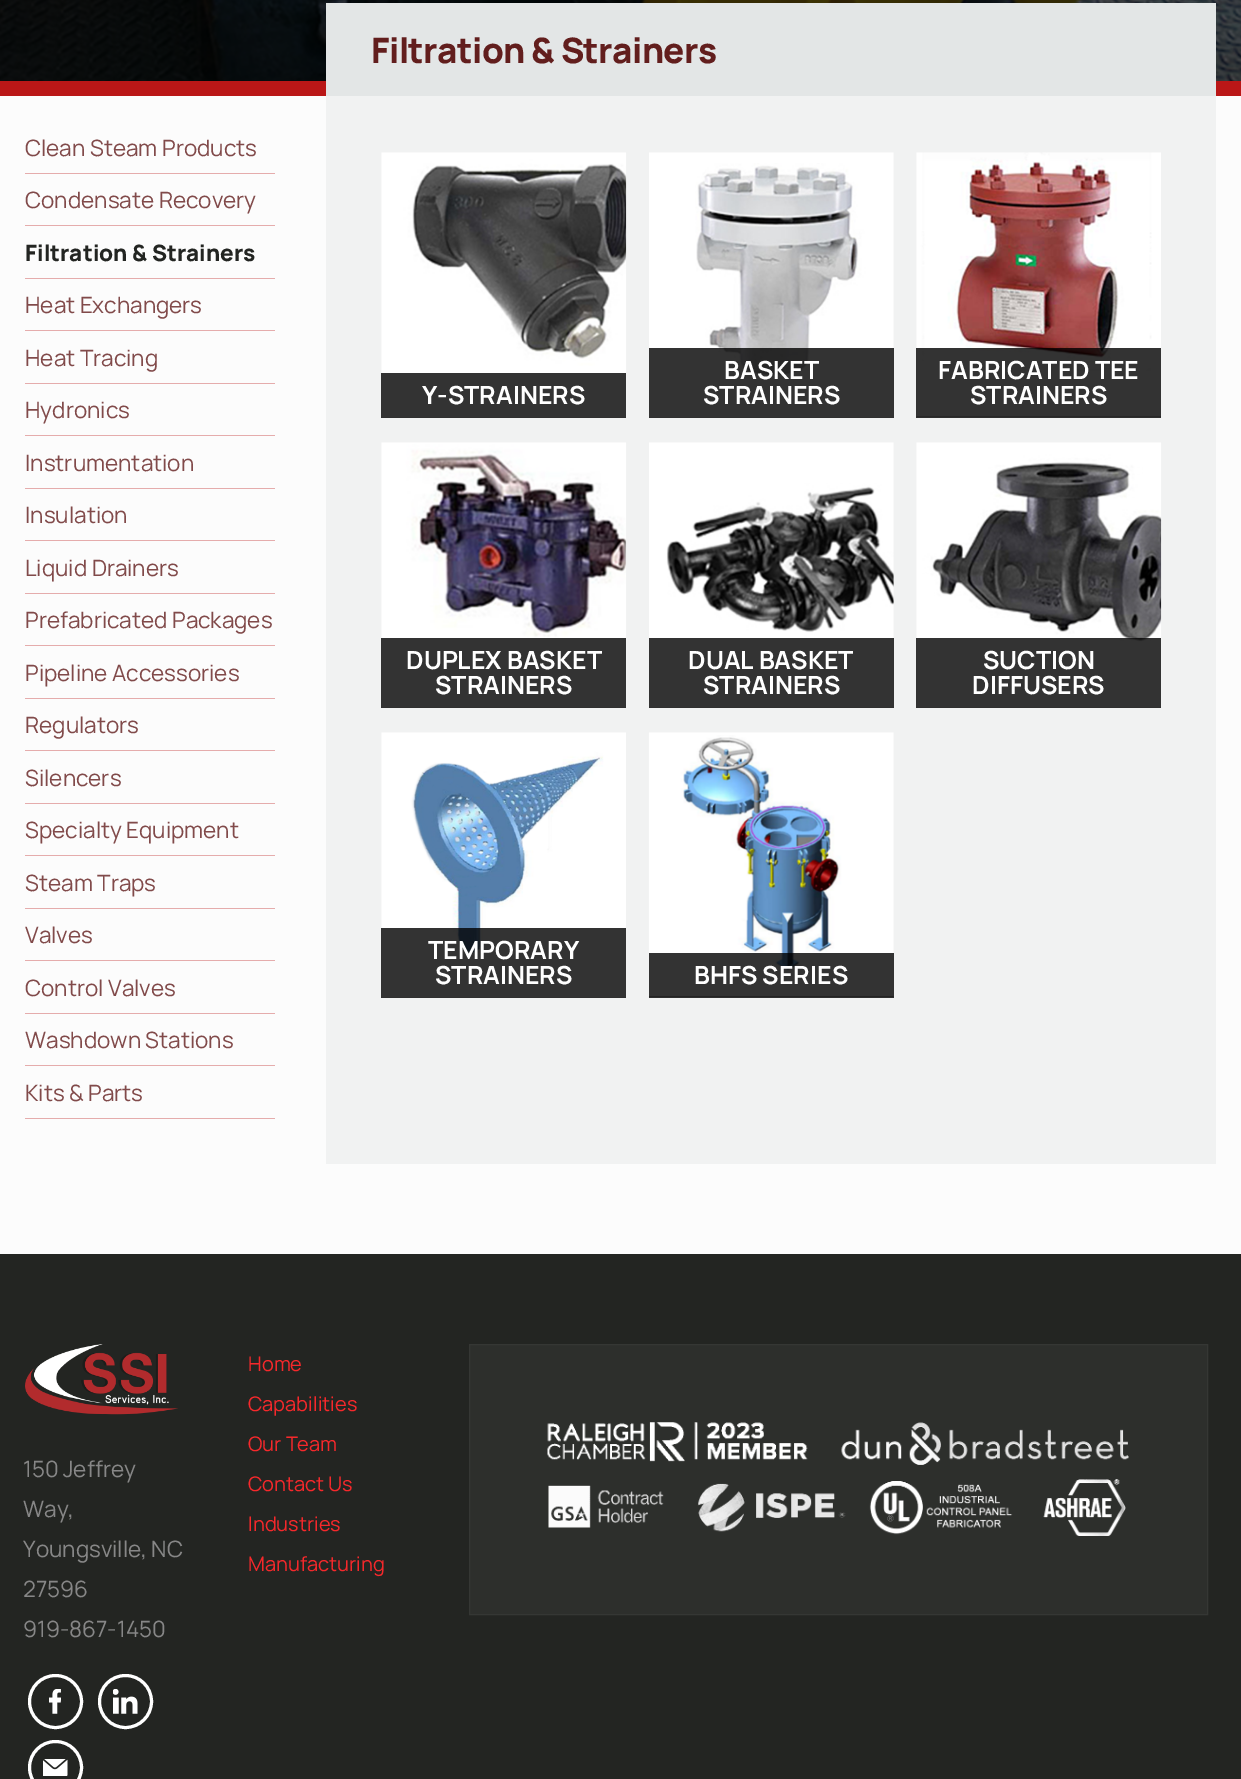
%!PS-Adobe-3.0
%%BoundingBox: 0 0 1241 1779
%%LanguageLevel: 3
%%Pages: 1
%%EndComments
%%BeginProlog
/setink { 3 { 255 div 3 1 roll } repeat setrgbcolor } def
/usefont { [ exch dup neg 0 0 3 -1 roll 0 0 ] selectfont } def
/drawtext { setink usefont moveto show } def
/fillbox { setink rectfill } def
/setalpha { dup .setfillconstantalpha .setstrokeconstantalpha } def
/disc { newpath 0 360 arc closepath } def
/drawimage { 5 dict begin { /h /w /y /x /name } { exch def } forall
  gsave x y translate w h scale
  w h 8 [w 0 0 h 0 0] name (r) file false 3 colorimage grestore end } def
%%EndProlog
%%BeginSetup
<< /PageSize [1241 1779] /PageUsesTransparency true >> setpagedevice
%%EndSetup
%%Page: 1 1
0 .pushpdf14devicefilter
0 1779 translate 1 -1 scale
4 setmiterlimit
0 0 1241 1779 252 252 252 fillbox
(assets/img1.rgb) 0 0 1241 81 drawimage
0 81 1241 15 186 23 23 fillbox
25 173 250 1 229 172 172 fillbox
(Clean Steam Products) 25 156 /Manrope-Regular 22.5 129 74 74 drawtext
25 225 250 1 229 172 172 fillbox
(Condensate Recovery) 25 208 /Manrope-Regular 22.5 129 74 74 drawtext
25 278 250 1 229 172 172 fillbox
(Filtration & Strainers) 25 261 /Manrope-ExtraBold 22.5 35 37 34 drawtext
25 330 250 1 229 172 172 fillbox
(Heat Exchangers) 25 313 /Manrope-Regular 22.5 129 74 74 drawtext
25 383 250 1 229 172 172 fillbox
(Heat Tracing) 25 366 /Manrope-Regular 22.5 129 74 74 drawtext
25 435 250 1 229 172 172 fillbox
(Hydronics) 25 418 /Manrope-Regular 22.5 129 74 74 drawtext
25 488 250 1 229 172 172 fillbox
(Instrumentation) 25 471 /Manrope-Regular 22.5 129 74 74 drawtext
25 540 250 1 229 172 172 fillbox
(Insulation) 25 523 /Manrope-Regular 22.5 129 74 74 drawtext
25 593 250 1 229 172 172 fillbox
(Liquid Drainers) 25 576 /Manrope-Regular 22.5 129 74 74 drawtext
25 645 250 1 229 172 172 fillbox
(Prefabricated Packages) 25 628 /Manrope-Regular 22.5 129 74 74 drawtext
25 698 250 1 229 172 172 fillbox
(Pipeline Accessories) 25 681 /Manrope-Regular 22.5 129 74 74 drawtext
25 750 250 1 229 172 172 fillbox
(Regulators) 25 733 /Manrope-Regular 22.5 129 74 74 drawtext
25 803 250 1 229 172 172 fillbox
(Silencers) 25 786 /Manrope-Regular 22.5 129 74 74 drawtext
25 855 250 1 229 172 172 fillbox
(Specialty Equipment) 25 838 /Manrope-Regular 22.5 129 74 74 drawtext
25 908 250 1 229 172 172 fillbox
(Steam Traps) 25 891 /Manrope-Regular 22.5 129 74 74 drawtext
25 960 250 1 229 172 172 fillbox
(Valves) 25 943 /Manrope-Regular 22.5 129 74 74 drawtext
25 1013 250 1 229 172 172 fillbox
(Control Valves) 25 996 /Manrope-Regular 22.5 129 74 74 drawtext
25 1065 250 1 229 172 172 fillbox
(Washdown Stations) 25 1048 /Manrope-Regular 22.5 129 74 74 drawtext
25 1118 250 1 229 172 172 fillbox
(Kits & Parts) 25 1101 /Manrope-Regular 22.5 129 74 74 drawtext
326 96 890 1068 241 242 242 fillbox
326 3 890 93 227 230 230 fillbox
/Manrope-ExtraBold 35 usefont
98 30 29 setink
371 63 moveto -0.6 0 (Filtration & Strainers) ashow
(assets/img2.rgb) 381 152 246 265 drawimage
0.8 setalpha
381 373 245 45 0 0 0 fillbox
1 setalpha
(Y-STRAINERS) 422 404 /Manrope-Bold 25 255 255 255 drawtext
(assets/img3.rgb) 649 152 245 265 drawimage
0.8 setalpha
649 348 245 70 0 0 0 fillbox
1 setalpha
(BASKET) 724 379 /Manrope-Bold 25 255 255 255 drawtext
(STRAINERS) 703 404 /Manrope-Bold 25 255 255 255 drawtext
(assets/img4.rgb) 916 152 245 266 drawimage
0.8 setalpha
916 348 245 70 0 0 0 fillbox
1 setalpha
(FABRICATED TEE) 938 379 /Manrope-Bold 25 255 255 255 drawtext
(STRAINERS) 970 404 /Manrope-Bold 25 255 255 255 drawtext
(assets/img5.rgb) 381 442 246 265 drawimage
0.8 setalpha
381 638 245 70 0 0 0 fillbox
1 setalpha
(DUPLEX BASKET) 406 669 /Manrope-Bold 25 255 255 255 drawtext
(STRAINERS) 435 694 /Manrope-Bold 25 255 255 255 drawtext
(assets/img6.rgb) 649 442 245 265 drawimage
0.8 setalpha
649 638 245 70 0 0 0 fillbox
1 setalpha
(DUAL BASKET) 688 669 /Manrope-Bold 25 255 255 255 drawtext
(STRAINERS) 703 694 /Manrope-Bold 25 255 255 255 drawtext
(assets/img7.rgb) 916 442 246 265 drawimage
0.8 setalpha
916 638 245 70 0 0 0 fillbox
1 setalpha
(SUCTION) 983 669 /Manrope-Bold 25 255 255 255 drawtext
(DIFFUSERS) 972 694 /Manrope-Bold 25 255 255 255 drawtext
(assets/img8.rgb) 381 732 245 265 drawimage
0.8 setalpha
381 928 245 70 0 0 0 fillbox
1 setalpha
(TEMPORARY) 428 959 /Manrope-Bold 25 255 255 255 drawtext
(STRAINERS) 435 984 /Manrope-Bold 25 255 255 255 drawtext
(assets/img9.rgb) 648 732 246 266 drawimage
0.8 setalpha
649 953 245 45 0 0 0 fillbox
1 setalpha
(BHFS SERIES) 694 984 /Manrope-Bold 25 255 255 255 drawtext
0 1254 1241 525 35 37 34 fillbox
(assets/img10.rgb) 25 1344 153 71 drawimage
(150 Jeffrey) 23 1477 /Manrope-Regular 22.5 135 135 135 drawtext
(Way,) 23 1517 /Manrope-Regular 22.5 135 135 135 drawtext
(Youngsville, NC) 23 1557 /Manrope-Regular 22.5 135 135 135 drawtext
(27596) 23 1597 /Manrope-Regular 22.5 135 135 135 drawtext
(919-867-1450) 23 1637 /Manrope-Regular 22.5 135 135 135 drawtext
255 255 255 setink
3 setlinewidth
55.5 1701.5 26 disc stroke
(assets/img11.rgb) 49 1689 12 25 drawimage
125.5 1701.5 26 disc stroke
(assets/img12.rgb) 113 1689 25 25 drawimage
55.5 1767.5 26 disc stroke
(assets/img13.rgb) 43 1759 25 17 drawimage
(Home) 248 1371 /Manrope-Regular 20 246 40 43 drawtext
(Capabilities) 248 1411 /Manrope-Regular 20 246 40 43 drawtext
(Our Team) 248 1451 /Manrope-Regular 20 246 40 43 drawtext
(Contact Us) 248 1491 /Manrope-Regular 20 246 40 43 drawtext
(Industries) 248 1531 /Manrope-Regular 20 246 40 43 drawtext
(Manufacturing) 248 1571 /Manrope-Regular 20 246 40 43 drawtext
45 47 44 setink
469.5 1344.5 moveto 1207.5 1344.5 lineto 1207.5 1614.5 lineto 469.5 1614.5 lineto closepath gsave fill grestore
53 55 52 setink
1 setlinewidth
stroke
(assets/img14.rgb) 547 1422 582 114 drawimage
.poppdf14devicefilter showpage
%%EOF
